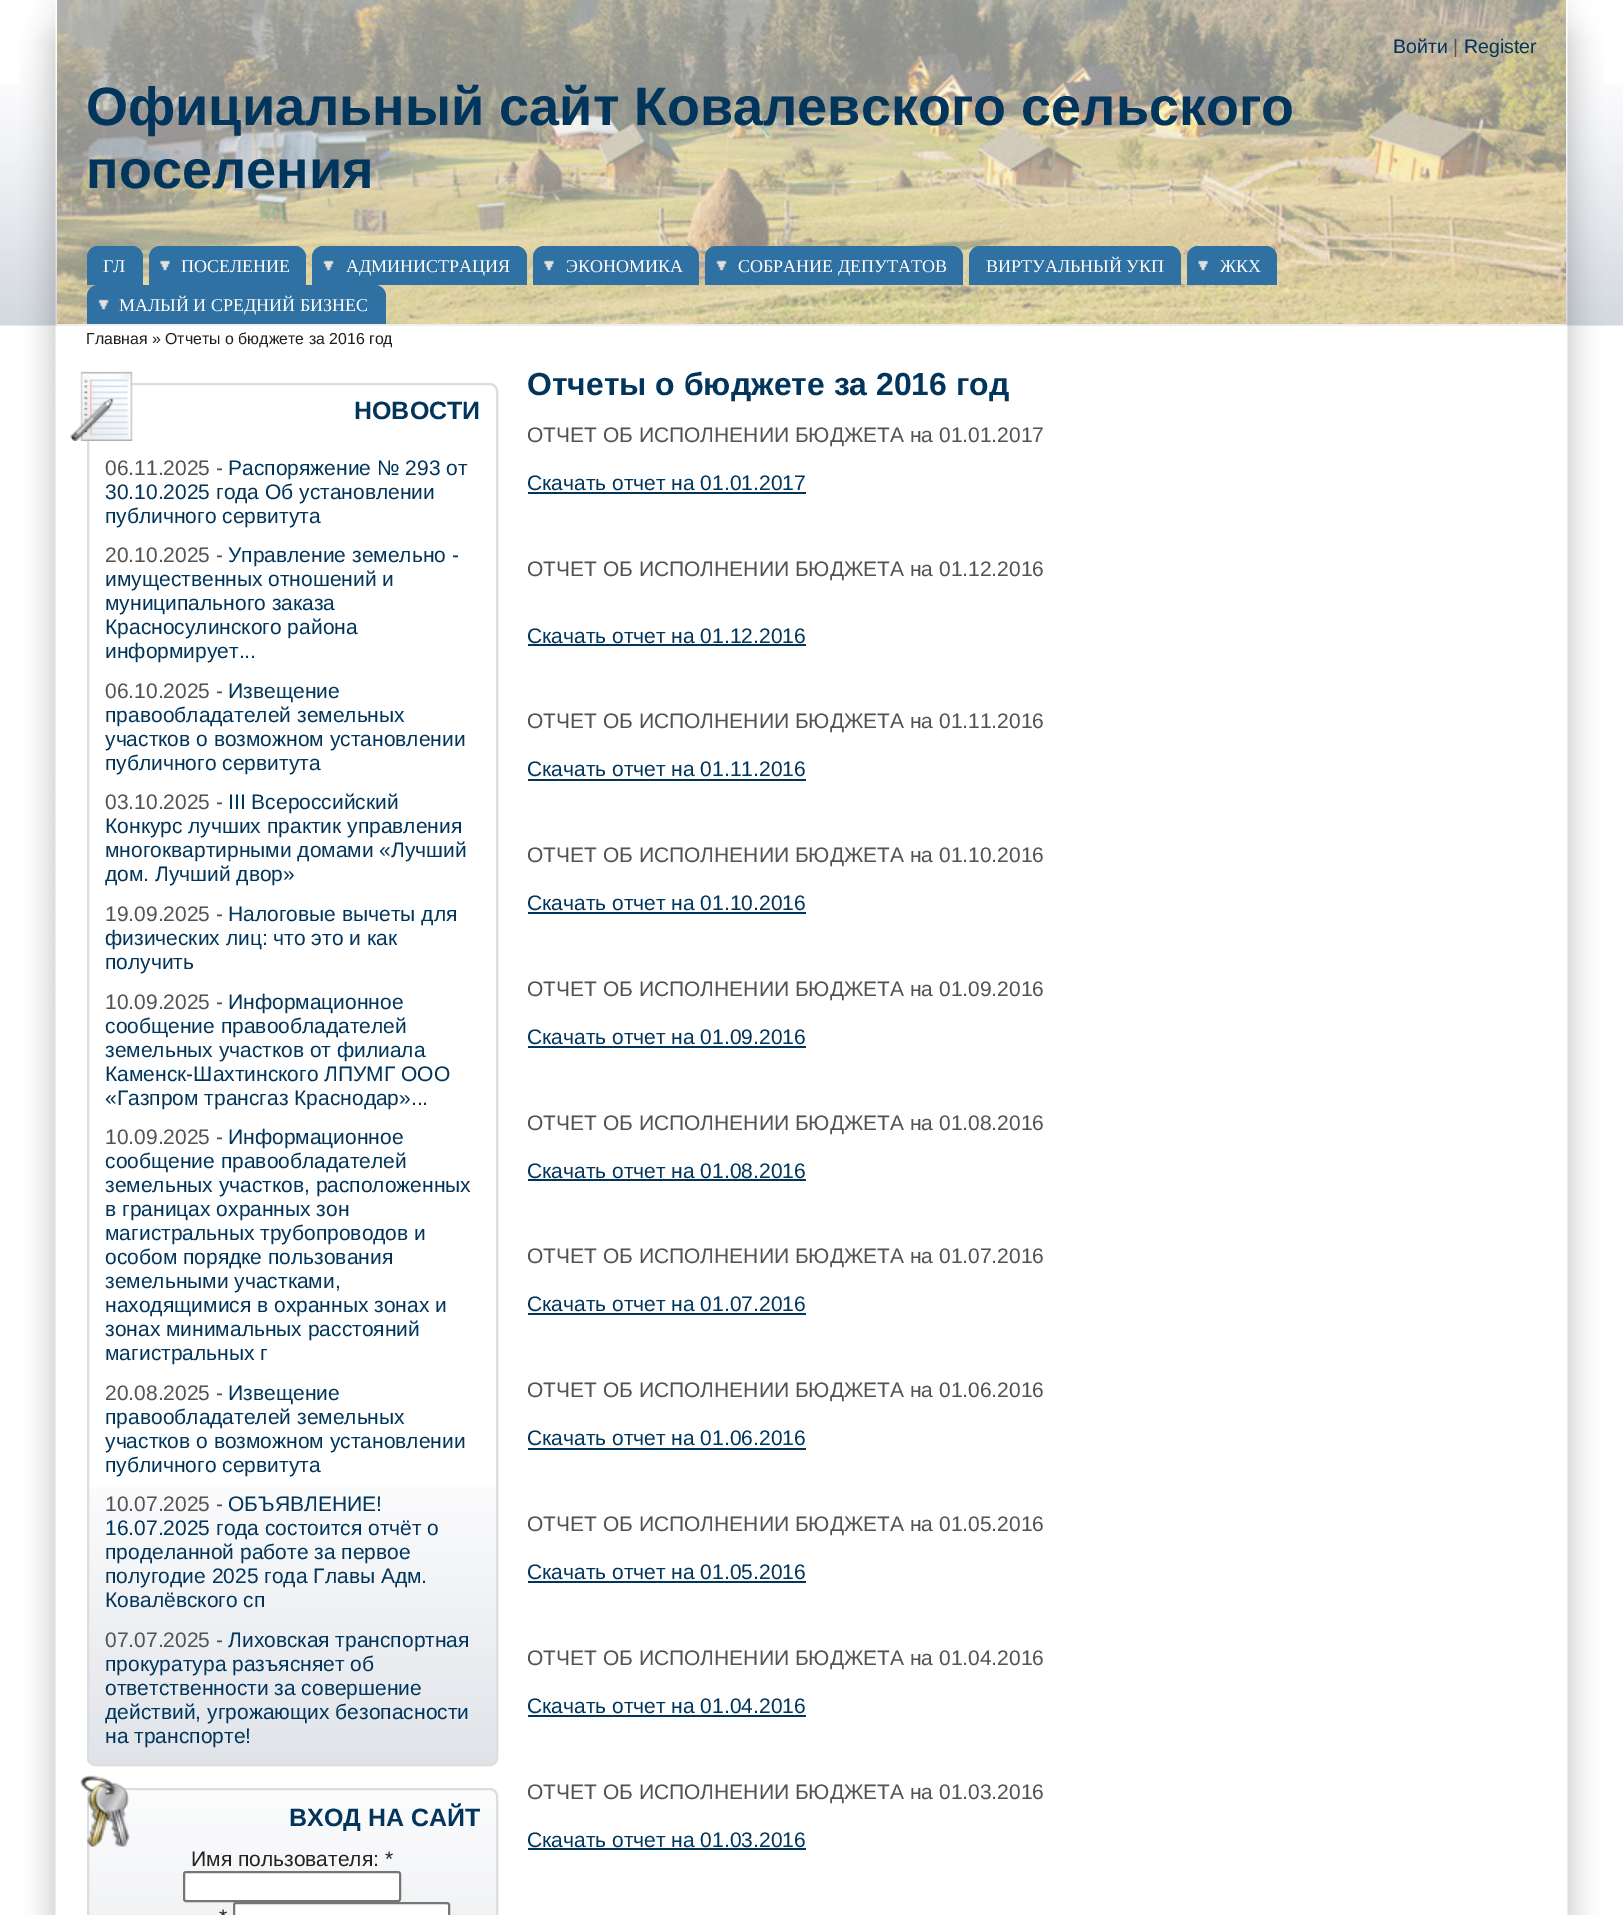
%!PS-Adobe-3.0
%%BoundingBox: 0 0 1623 1915
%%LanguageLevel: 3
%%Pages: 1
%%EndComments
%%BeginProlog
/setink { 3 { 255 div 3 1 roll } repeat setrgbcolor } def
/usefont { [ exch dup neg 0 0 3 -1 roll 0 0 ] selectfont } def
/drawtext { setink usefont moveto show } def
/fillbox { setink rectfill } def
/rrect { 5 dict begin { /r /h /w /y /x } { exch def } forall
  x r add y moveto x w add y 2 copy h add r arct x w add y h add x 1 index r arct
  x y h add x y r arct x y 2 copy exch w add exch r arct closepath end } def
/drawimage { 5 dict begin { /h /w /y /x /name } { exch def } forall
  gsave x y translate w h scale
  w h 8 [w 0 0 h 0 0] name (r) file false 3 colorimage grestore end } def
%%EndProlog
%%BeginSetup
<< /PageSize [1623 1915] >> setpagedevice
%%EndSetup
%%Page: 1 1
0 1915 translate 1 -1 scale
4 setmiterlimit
0 0 1623 1915 255 255 255 fillbox
(assets/img1.rgb) 0 84 1623 242 drawimage
(assets/img9.rgb) 19 325 37 1590 drawimage
(assets/img2.rgb) 19 0 37 326 drawimage
(assets/img10.rgb) 1567 325 37 1590 drawimage
(assets/img3.rgb) 1567 0 37 326 drawimage
(assets/img4.rgb) 57 0 1509 324 drawimage
57 324 1509 2 238 238 238 fillbox
(Войти) 1393 53 /LiberationSans-Regular 19.5 1 53 92 drawtext
(|) 1453 53 /LiberationSans-Regular 19.5 83 83 83 drawtext
(Register) 1464 53 /LiberationSans-Regular 19.5 1 53 92 drawtext
(Официальный сайт Ковалевского сельского) 86 125 /LiberationSans-Bold 54 1 53 92 drawtext
(поселения) 86 188 /LiberationSans-Bold 54 1 53 92 drawtext
47 113 162 setink
98 246 moveto 132 246 lineto 138 246 143 251 143 257 curveto 143 285 lineto 87 285 lineto 87 257 lineto 87 251 92 246 98 246 curveto closepath fill
(ГЛ) 103 272 /LiberationSerif-Regular 18 255 255 255 drawtext
47 113 162 setink
160 246 moveto 295 246 lineto 301 246 306 251 306 257 curveto 306 285 lineto 149 285 lineto 149 257 lineto 149 251 154 246 160 246 curveto closepath fill
(assets/img5.rgb) 160 260 10 11 drawimage
(ПОСЕЛЕНИЕ) 181 272 /LiberationSerif-Regular 18 255 255 255 drawtext
47 113 162 setink
323 246 moveto 516 246 lineto 522 246 527 251 527 257 curveto 527 285 lineto 312 285 lineto 312 257 lineto 312 251 317 246 323 246 curveto closepath fill
(assets/img6.rgb) 323 260 11 11 drawimage
(АДМИНИСТРАЦИЯ) 346 272 /LiberationSerif-Regular 18 255 255 255 drawtext
47 113 162 setink
544 246 moveto 688 246 lineto 694 246 699 251 699 257 curveto 699 285 lineto 533 285 lineto 533 257 lineto 533 251 538 246 544 246 curveto closepath fill
(assets/img5.rgb) 544 260 10 11 drawimage
(ЭКОНОМИКА) 566 272 /LiberationSerif-Regular 18 255 255 255 drawtext
47 113 162 setink
716 246 moveto 952 246 lineto 958 246 963 251 963 257 curveto 963 285 lineto 705 285 lineto 705 257 lineto 705 251 710 246 716 246 curveto closepath fill
(assets/img7.rgb) 716 260 11 11 drawimage
(СОБРАНИЕ ДЕПУТАТОВ) 738 272 /LiberationSerif-Regular 18 255 255 255 drawtext
47 113 162 setink
980 246 moveto 1170 246 lineto 1176 246 1181 251 1181 257 curveto 1181 285 lineto 969 285 lineto 969 257 lineto 969 251 974 246 980 246 curveto closepath fill
(ВИРТУАЛЬНЫЙ УКП) 986 272 /LiberationSerif-Regular 18 255 255 255 drawtext
47 113 162 setink
1198 246 moveto 1266 246 lineto 1272 246 1277 251 1277 257 curveto 1277 285 lineto 1187 285 lineto 1187 257 lineto 1187 251 1192 246 1198 246 curveto closepath fill
(assets/img8.rgb) 1198 260 10 11 drawimage
(ЖКХ) 1220 272 /LiberationSerif-Regular 18 255 255 255 drawtext
47 113 162 setink
98 285 moveto 375 285 lineto 381 285 386 290 386 296 curveto 386 324 lineto 87 324 lineto 87 296 lineto 87 290 92 285 98 285 curveto closepath fill
(assets/img6.rgb) 98 299 11 11 drawimage
(МАЛЫЙ И СРЕДНИЙ БИЗНЕС) 119 311 /LiberationSerif-Regular 18 255 255 255 drawtext
(Главная » Отчеты о бюджете за 2016 год) 86 344 /LiberationSans-Regular 15.9 30 32 27 drawtext
(assets/img11.rgb) 87 1487 411 277 drawimage
221 221 221 setink
2 setlinewidth
88 384 409 1381 7 rrect stroke
(assets/img12.rgb) 70 371 63 70 drawimage
(НОВОСТИ) 354 419 /LiberationSans-Bold 25 1 53 92 drawtext
(06.11.2025 -) 105 475 /LiberationSans-Regular 21 83 83 83 drawtext
(Распоряжение № 293 от) 228 475 /LiberationSans-Regular 21 1 53 92 drawtext
(30.10.2025 года Об установлении) 105 499 /LiberationSans-Regular 21 1 53 92 drawtext
(публичного сервитута) 105 523 /LiberationSans-Regular 21 1 53 92 drawtext
(20.10.2025 -) 105 562 /LiberationSans-Regular 21 83 83 83 drawtext
(Управление земельно -) 228 562 /LiberationSans-Regular 21 1 53 92 drawtext
(имущественных отношений и) 105 586 /LiberationSans-Regular 21 1 53 92 drawtext
(муниципального заказа) 105 610 /LiberationSans-Regular 21 1 53 92 drawtext
(Красносулинского района) 105 634 /LiberationSans-Regular 21 1 53 92 drawtext
(информирует...) 105 658 /LiberationSans-Regular 21 1 53 92 drawtext
(06.10.2025 -) 105 698 /LiberationSans-Regular 21 83 83 83 drawtext
(Извещение) 228 698 /LiberationSans-Regular 21 1 53 92 drawtext
(правообладателей земельных) 105 722 /LiberationSans-Regular 21 1 53 92 drawtext
(участков о возможном установлении) 105 746 /LiberationSans-Regular 21 1 53 92 drawtext
(публичного сервитута) 105 770 /LiberationSans-Regular 21 1 53 92 drawtext
(03.10.2025 -) 105 809 /LiberationSans-Regular 21 83 83 83 drawtext
(III Всероссийский) 228 809 /LiberationSans-Regular 21 1 53 92 drawtext
(Конкурс лучших практик управления) 105 833 /LiberationSans-Regular 21 1 53 92 drawtext
(многоквартирными домами «Лучший) 105 857 /LiberationSans-Regular 21 1 53 92 drawtext
(дом. Лучший двор») 105 881 /LiberationSans-Regular 21 1 53 92 drawtext
(19.09.2025 -) 105 921 /LiberationSans-Regular 21 83 83 83 drawtext
(Налоговые вычеты для) 228 921 /LiberationSans-Regular 21 1 53 92 drawtext
(физических лиц: что это и как) 105 945 /LiberationSans-Regular 21 1 53 92 drawtext
(получить) 105 969 /LiberationSans-Regular 21 1 53 92 drawtext
(10.09.2025 -) 105 1009 /LiberationSans-Regular 21 83 83 83 drawtext
(Информационное) 228 1009 /LiberationSans-Regular 21 1 53 92 drawtext
(сообщение правообладателей) 105 1033 /LiberationSans-Regular 21 1 53 92 drawtext
(земельных участков от филиала) 105 1057 /LiberationSans-Regular 21 1 53 92 drawtext
(Каменск-Шахтинского ЛПУМГ ООО) 105 1081 /LiberationSans-Regular 21 1 53 92 drawtext
(«Газпром трансгаз Краснодар»...) 105 1105 /LiberationSans-Regular 21 1 53 92 drawtext
(10.09.2025 -) 105 1144 /LiberationSans-Regular 21 83 83 83 drawtext
(Информационное) 228 1144 /LiberationSans-Regular 21 1 53 92 drawtext
(сообщение правообладателей) 105 1168 /LiberationSans-Regular 21 1 53 92 drawtext
(земельных участков, расположенных) 105 1192 /LiberationSans-Regular 21 1 53 92 drawtext
(в границах охранных зон) 105 1216 /LiberationSans-Regular 21 1 53 92 drawtext
(магистральных трубопроводов и) 105 1240 /LiberationSans-Regular 21 1 53 92 drawtext
(особом порядке пользования) 105 1264 /LiberationSans-Regular 21 1 53 92 drawtext
(земельными участками,) 105 1288 /LiberationSans-Regular 21 1 53 92 drawtext
(находящимися в охранных зонах и) 105 1312 /LiberationSans-Regular 21 1 53 92 drawtext
(зонах минимальных расстояний) 105 1336 /LiberationSans-Regular 21 1 53 92 drawtext
(магистральных г) 105 1360 /LiberationSans-Regular 21 1 53 92 drawtext
(20.08.2025 -) 105 1400 /LiberationSans-Regular 21 83 83 83 drawtext
(Извещение) 228 1400 /LiberationSans-Regular 21 1 53 92 drawtext
(правообладателей земельных) 105 1424 /LiberationSans-Regular 21 1 53 92 drawtext
(участков о возможном установлении) 105 1448 /LiberationSans-Regular 21 1 53 92 drawtext
(публичного сервитута) 105 1472 /LiberationSans-Regular 21 1 53 92 drawtext
(10.07.2025 -) 105 1511 /LiberationSans-Regular 21 83 83 83 drawtext
(ОБЪЯВЛЕНИЕ!) 228 1511 /LiberationSans-Regular 21 1 53 92 drawtext
(16.07.2025 года состоится отчёт о) 105 1535 /LiberationSans-Regular 21 1 53 92 drawtext
(проделанной работе за первое) 105 1559 /LiberationSans-Regular 21 1 53 92 drawtext
(полугодие 2025 года Главы Адм.) 105 1583 /LiberationSans-Regular 21 1 53 92 drawtext
(Ковалёвского сп) 105 1607 /LiberationSans-Regular 21 1 53 92 drawtext
(07.07.2025 -) 105 1647 /LiberationSans-Regular 21 83 83 83 drawtext
(Лиховская транспортная) 228 1647 /LiberationSans-Regular 21 1 53 92 drawtext
(прокуратура разъясняет об) 105 1671 /LiberationSans-Regular 21 1 53 92 drawtext
(ответственности за совершение) 105 1695 /LiberationSans-Regular 21 1 53 92 drawtext
(действий, угрожающих безопасности) 105 1719 /LiberationSans-Regular 21 1 53 92 drawtext
(на транспорте!) 105 1743 /LiberationSans-Regular 21 1 53 92 drawtext
(assets/img13.rgb) 87 1788 411 127 drawimage
221 221 221 setink
88 1789 409 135 7 rrect stroke
(assets/img14.rgb) 80 1775 50 72 drawimage
(ВХОД НА САЙТ) 289 1826 /LiberationSans-Bold 25 1 53 92 drawtext
(Имя пользователя: *) 191 1866 /LiberationSans-Regular 21 34 34 34 drawtext
255 255 255 setink
184 1872 216 29 2 rrect gsave fill grestore
118 118 118 setink
stroke
(*) 219 1924 /LiberationSans-Regular 21 34 34 34 drawtext
255 255 255 setink
234 1903 215 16 2 rrect gsave fill grestore
118 118 118 setink
stroke
(Отчеты о бюджете за 2016 год) 527 395 /LiberationSans-Bold 31.9 1 53 92 drawtext
(ОТЧЕТ ОБ ИСПОЛНЕНИИ БЮДЖЕТА на 01.01.2017) 527 442 /LiberationSans-Regular 21 83 83 83 drawtext
(Скачать отчет на 01.01.2017) 527 490 /LiberationSans-Regular 21 1 53 92 drawtext
528 492 278 2 1 53 92 fillbox
(ОТЧЕТ ОБ ИСПОЛНЕНИИ БЮДЖЕТА на 01.12.2016) 527 576 /LiberationSans-Regular 21 83 83 83 drawtext
(Скачать отчет на 01.12.2016) 527 643 /LiberationSans-Regular 21 1 53 92 drawtext
528 644 278 2 1 53 92 fillbox
(ОТЧЕТ ОБ ИСПОЛНЕНИИ БЮДЖЕТА на 01.11.2016) 527 728 /LiberationSans-Regular 21 83 83 83 drawtext
(Скачать отчет на 01.11.2016) 527 776 /LiberationSans-Regular 21 1 53 92 drawtext
528 779 278 2 1 53 92 fillbox
(ОТЧЕТ ОБ ИСПОЛНЕНИИ БЮДЖЕТА на 01.10.2016) 527 862 /LiberationSans-Regular 21 83 83 83 drawtext
(Скачать отчет на 01.10.2016) 527 910 /LiberationSans-Regular 21 1 53 92 drawtext
528 912 278 2 1 53 92 fillbox
(ОТЧЕТ ОБ ИСПОЛНЕНИИ БЮДЖЕТА на 01.09.2016) 527 996 /LiberationSans-Regular 21 83 83 83 drawtext
(Скачать отчет на 01.09.2016) 527 1044 /LiberationSans-Regular 21 1 53 92 drawtext
528 1046 278 2 1 53 92 fillbox
(ОТЧЕТ ОБ ИСПОЛНЕНИИ БЮДЖЕТА на 01.08.2016) 527 1130 /LiberationSans-Regular 21 83 83 83 drawtext
(Скачать отчет на 01.08.2016) 527 1178 /LiberationSans-Regular 21 1 53 92 drawtext
528 1179 278 2 1 53 92 fillbox
(ОТЧЕТ ОБ ИСПОЛНЕНИИ БЮДЖЕТА на 01.07.2016) 527 1263 /LiberationSans-Regular 21 83 83 83 drawtext
(Скачать отчет на 01.07.2016) 527 1311 /LiberationSans-Regular 21 1 53 92 drawtext
528 1313 278 2 1 53 92 fillbox
(ОТЧЕТ ОБ ИСПОЛНЕНИИ БЮДЖЕТА на 01.06.2016) 527 1397 /LiberationSans-Regular 21 83 83 83 drawtext
(Скачать отчет на 01.06.2016) 527 1445 /LiberationSans-Regular 21 1 53 92 drawtext
528 1448 278 2 1 53 92 fillbox
(ОТЧЕТ ОБ ИСПОЛНЕНИИ БЮДЖЕТА на 01.05.2016) 527 1531 /LiberationSans-Regular 21 83 83 83 drawtext
(Скачать отчет на 01.05.2016) 527 1579 /LiberationSans-Regular 21 1 53 92 drawtext
528 1581 278 2 1 53 92 fillbox
(ОТЧЕТ ОБ ИСПОЛНЕНИИ БЮДЖЕТА на 01.04.2016) 527 1665 /LiberationSans-Regular 21 83 83 83 drawtext
(Скачать отчет на 01.04.2016) 527 1713 /LiberationSans-Regular 21 1 53 92 drawtext
528 1715 278 2 1 53 92 fillbox
(ОТЧЕТ ОБ ИСПОЛНЕНИИ БЮДЖЕТА на 01.03.2016) 527 1799 /LiberationSans-Regular 21 83 83 83 drawtext
(Скачать отчет на 01.03.2016) 527 1847 /LiberationSans-Regular 21 1 53 92 drawtext
528 1848 278 2 1 53 92 fillbox
showpage
%%EOF
